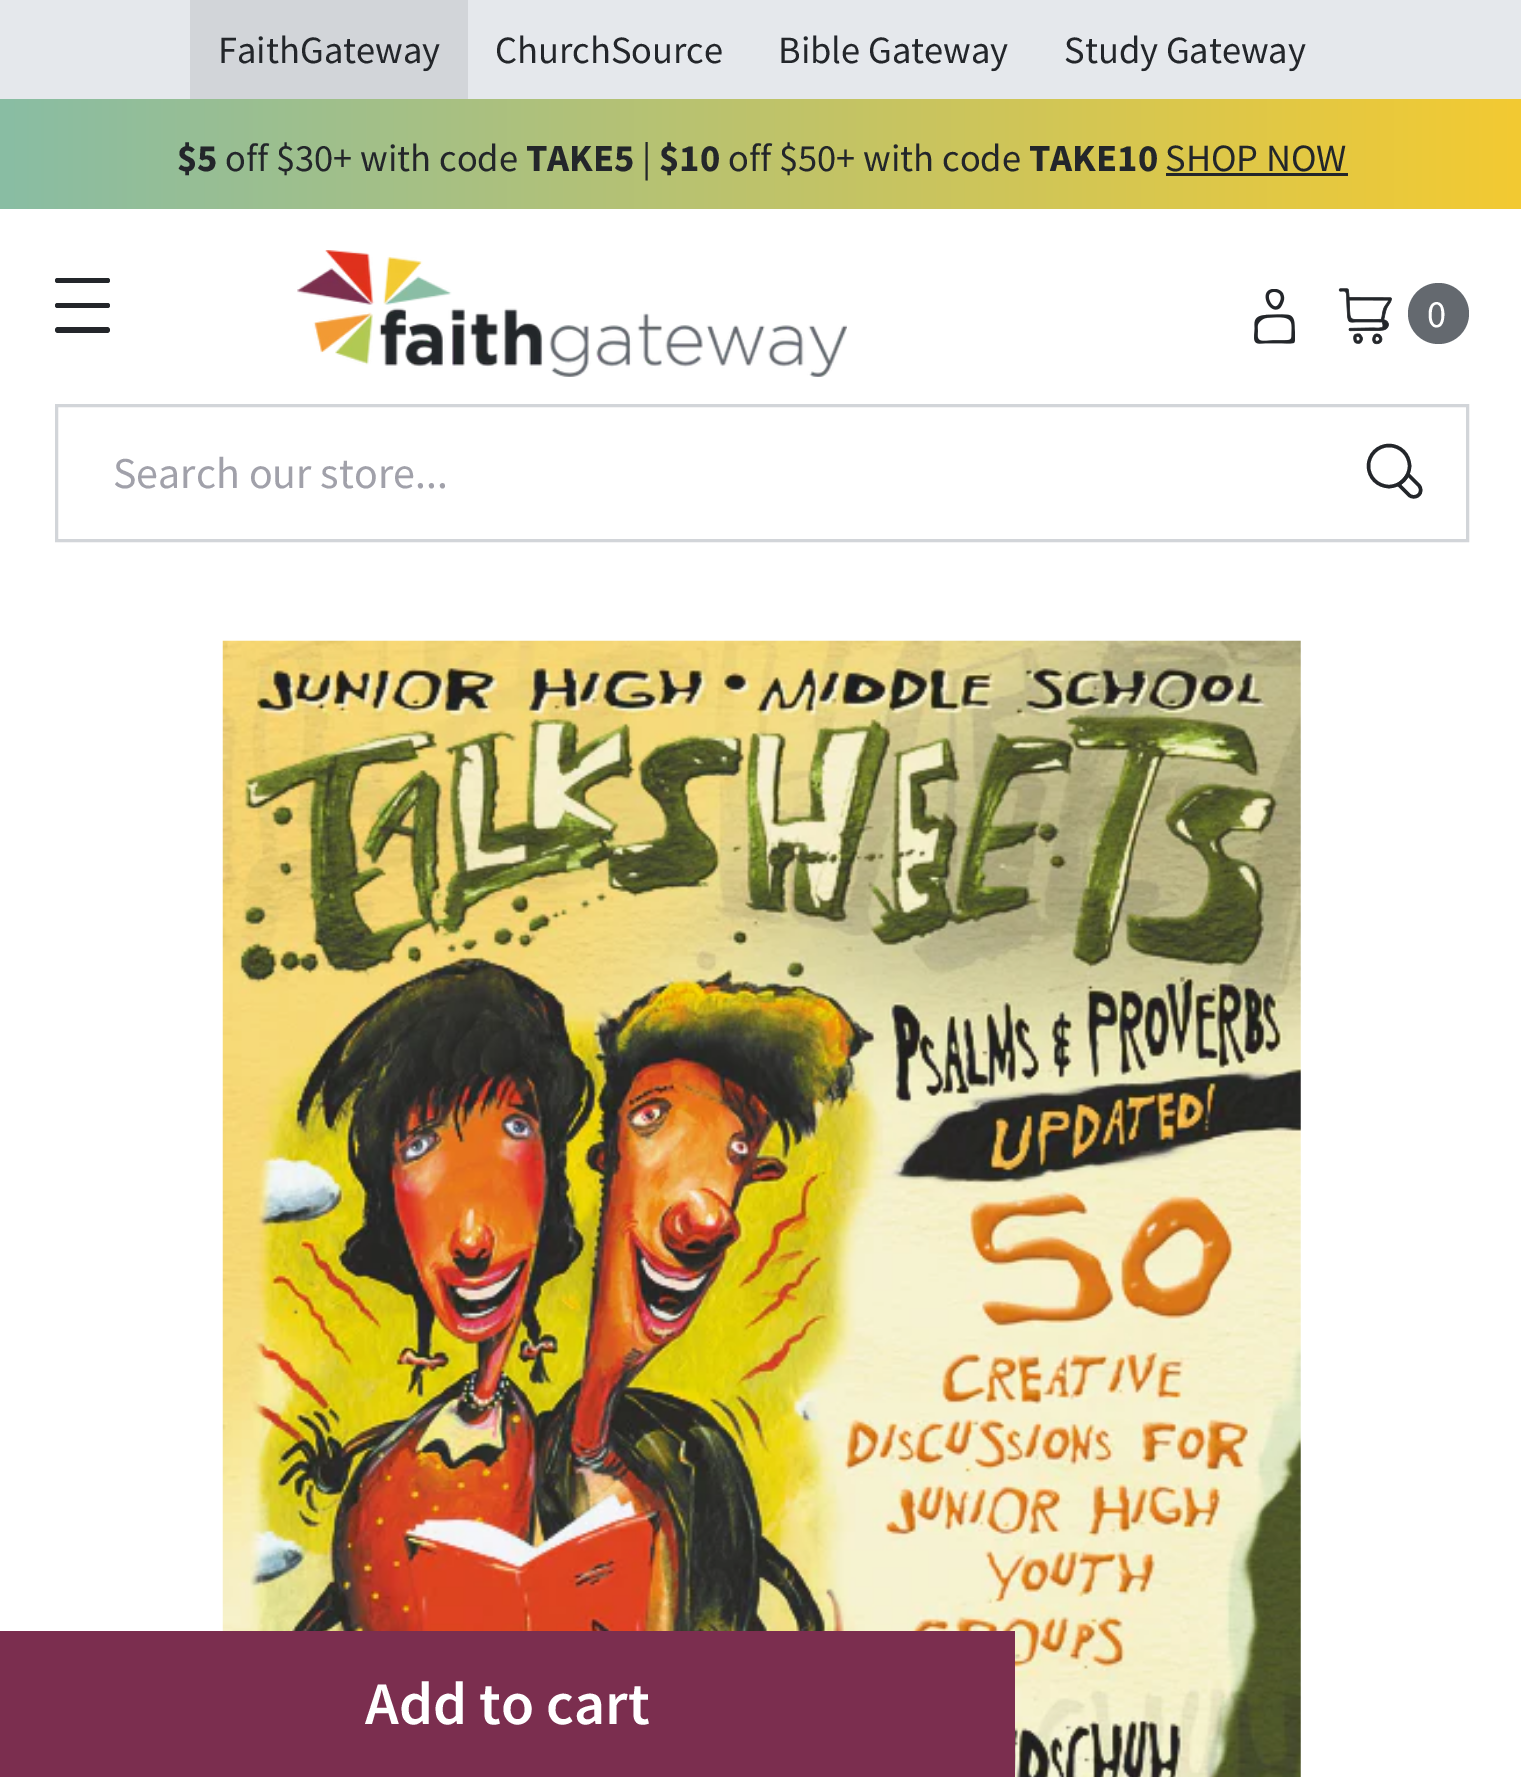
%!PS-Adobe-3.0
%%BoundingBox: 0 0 1521 1777
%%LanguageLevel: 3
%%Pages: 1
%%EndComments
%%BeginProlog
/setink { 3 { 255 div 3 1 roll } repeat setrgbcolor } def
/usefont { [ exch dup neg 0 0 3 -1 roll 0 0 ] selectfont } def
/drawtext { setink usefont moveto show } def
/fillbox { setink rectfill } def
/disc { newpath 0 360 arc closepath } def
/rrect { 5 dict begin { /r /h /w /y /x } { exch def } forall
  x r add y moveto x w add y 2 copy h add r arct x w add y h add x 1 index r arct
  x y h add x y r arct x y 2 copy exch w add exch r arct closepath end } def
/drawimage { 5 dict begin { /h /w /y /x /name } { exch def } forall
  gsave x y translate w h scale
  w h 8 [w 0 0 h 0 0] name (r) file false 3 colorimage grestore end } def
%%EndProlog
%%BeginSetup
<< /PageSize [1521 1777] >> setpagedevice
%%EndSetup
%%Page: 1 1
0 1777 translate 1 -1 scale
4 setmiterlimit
0 0 1521 1777 255 255 255 fillbox
0 0 1521 99 229 232 236 fillbox
190 0 278 99 210 213 217 fillbox
(FaithGateway) 218 63 /SourceSansPro-Regular 38.5 35 38 42 drawtext
(ChurchSource) 495 63 /SourceSansPro-Regular 38.5 35 38 42 drawtext
(Bible Gateway) 778 63 /SourceSansPro-Regular 38.5 35 38 42 drawtext
(Study Gateway) 1064 63 /SourceSansPro-Regular 38.5 35 38 42 drawtext
gsave 0 99 moveto 1521 99 lineto 1521 209 lineto 0 209 lineto closepath clip newpath
<< /ShadingType 2 /ColorSpace /DeviceRGB /Coords [0 154 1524 154] /Extend [true true] /Function << /FunctionType 2 /Domain [0 1] /C0 [0.537 0.741 0.643] /C1 [0.953 0.792 0.196] /N 1 >> >> shfill grestore
($5) 177 171 /SourceSansPro-Bold 38.5 35 38 42 drawtext
(off $30+ with code) 225 171 /SourceSansPro-Regular 38.5 35 38 42 drawtext
(TAKE5) 526 171 /SourceSansPro-Bold 38.5 35 38 42 drawtext
(|) 642 171 /SourceSansPro-Regular 38.5 35 38 42 drawtext
($10) 659 171 /SourceSansPro-Bold 38.5 35 38 42 drawtext
(off $50+ with code) 728 171 /SourceSansPro-Regular 38.5 35 38 42 drawtext
(TAKE10) 1029 171 /SourceSansPro-Bold 38.5 35 38 42 drawtext
(SHOP NOW) 1165 171 /SourceSansPro-Regular 38.5 35 38 42 drawtext
1166 173 182 3 35 38 42 fillbox
55 278 55 5 2.5 rrect fill
55 303 55 5 2.5 rrect fill
55 327 55 6 3 rrect fill
(assets/img1.rgb) 297 250 550 127 drawimage
(assets/img2.rgb) 1254 289 41 55 drawimage
(assets/img3.rgb) 1338 288 54 57 drawimage
100 105 111 setink
1438.5 313.5 30.5 disc fill
255 255 255 setink
1427 327 moveto 3 0 (0) ashow
210 213 217 setink
3 setlinewidth
56.5 405.5 1411 135 rectstroke
(Search our store...) 113 488 /SourceSansPro-Regular 44 161 161 170 drawtext
35 38 42 setink
3.4 setlinewidth
1389 466 20.5 disc stroke
1398.5 484.5 moveto 1402.5 482 1405.5 478.5 1408 474.5 curveto 1418.5 485 lineto 1421.5 488 1421.5 492.5 1418.5 495 curveto 1416 497.5 1411.5 497.5 1409 495 curveto closepath stroke
(assets/img4.rgb) 222 640 1079 1137 drawimage
gsave 0 1631 moveto 1015 1631 lineto 1015 1777 lineto 0 1777 lineto closepath clip newpath
<< /ShadingType 2 /ColorSpace /DeviceRGB /Coords [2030 1705 0 1705] /Extend [true true] /Function << /FunctionType 3 /Domain [0 1] /Functions [<< /FunctionType 2 /Domain [0 1] /C0 [0.878 0.192 0.11] /C1 [0.482 0.18 0.31] /N 1 >> << /FunctionType 2 /Domain [0 1] /C0 [0.482 0.18 0.31] /C1 [0.482 0.18 0.31] /N 1 >>] /Bounds [0.5] /Encode [0 1 0 1] >> >> shfill grestore
(Add to cart) 365 1724 /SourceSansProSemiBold-SemiBold 60.5 255 255 255 drawtext
showpage
%%EOF
